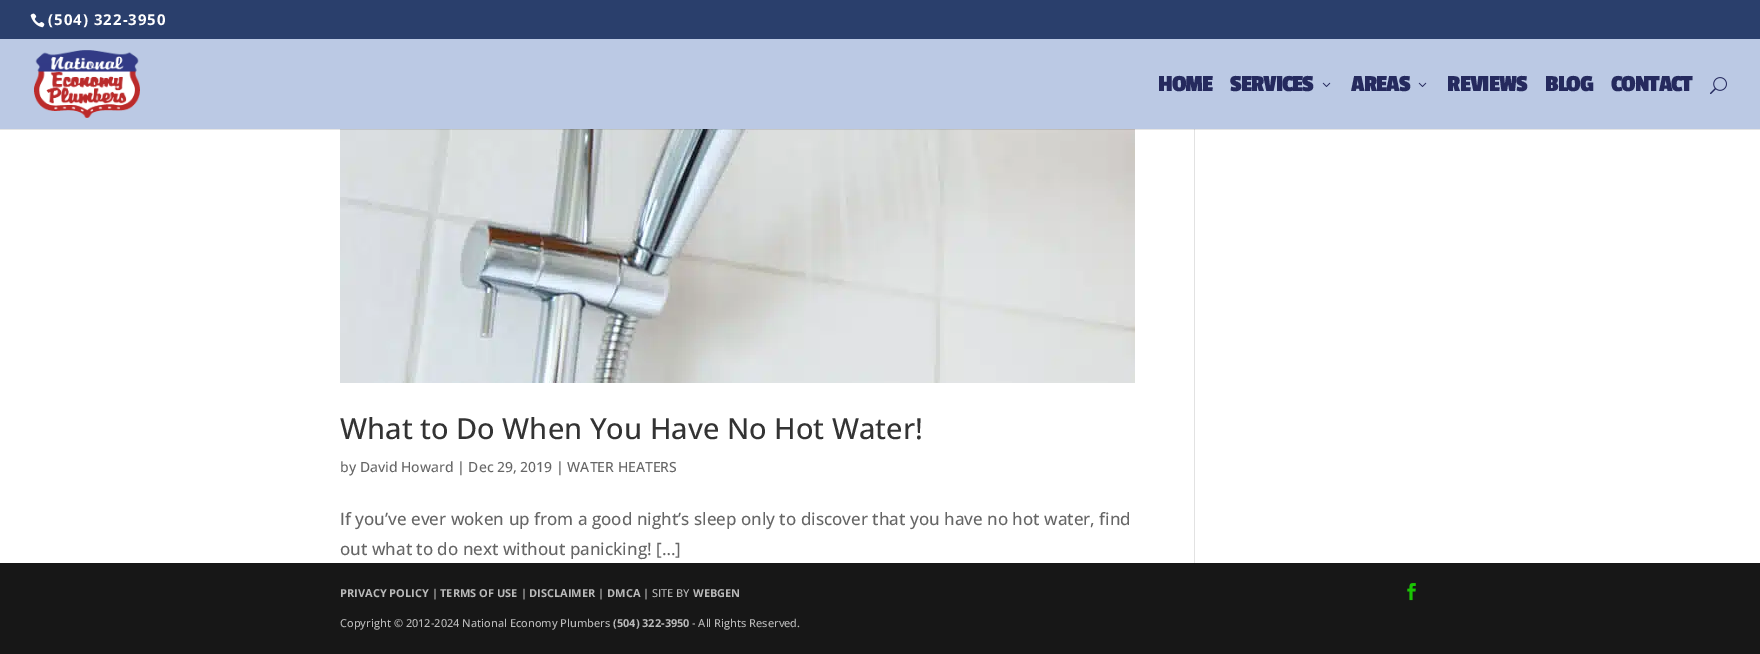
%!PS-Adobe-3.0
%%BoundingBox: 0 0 1760 654
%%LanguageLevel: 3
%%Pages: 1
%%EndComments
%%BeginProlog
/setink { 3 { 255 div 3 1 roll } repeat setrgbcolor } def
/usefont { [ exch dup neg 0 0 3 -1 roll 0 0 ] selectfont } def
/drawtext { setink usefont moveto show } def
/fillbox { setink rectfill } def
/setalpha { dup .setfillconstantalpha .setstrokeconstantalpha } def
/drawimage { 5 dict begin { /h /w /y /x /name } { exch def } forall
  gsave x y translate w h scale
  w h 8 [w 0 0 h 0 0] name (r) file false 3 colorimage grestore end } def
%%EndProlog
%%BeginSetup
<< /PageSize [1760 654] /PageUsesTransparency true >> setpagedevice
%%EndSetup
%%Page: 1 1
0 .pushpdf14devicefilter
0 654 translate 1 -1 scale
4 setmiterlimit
0 0 1760 654 255 255 255 fillbox
0 0 1760 39 42 63 108 fillbox
(assets/img1.rgb) 30 13 15 15 drawimage
/OpenSans-Bold 15 usefont
255 255 255 setink
48 25 moveto 1 0 (\(504\) 322-3950) ashow
(assets/img5.rgb) 340 129 795 254 drawimage
1194 129 1 434 226 226 226 fillbox
0.1 setalpha
0 129 1760 1 0 0 0 fillbox
1 setalpha
0 39 1760 90 187 201 228 fillbox
(assets/img2.rgb) 34 50 106 68 drawimage
/PassionOne-Bold 24 usefont
37 42 94 setink
1158 91 moveto -1 0 (HOME) ashow
1230 91 moveto -1 0 (SERVICES) ashow
(assets/img3.rgb) 1322 82 9 5 drawimage
1351 91 moveto -1 0 (AREAS) ashow
(assets/img3.rgb) 1418 82 9 5 drawimage
1447 91 moveto -1 0 (REVIEWS) ashow
1545 91 moveto -1 0 (BLOG) ashow
1611 91 moveto -1 0 (CONTACT) ashow
(assets/img4.rgb) 1710 77 17 18 drawimage
(What to Do When You Have No Hot Water!) 340 439 /OpenSans-Medium 29 51 51 51 drawtext
(by David Howard | Dec 29, 2019 | WATER HEATERS) 340 472 /OpenSans-Medium 14 102 102 102 drawtext
(If you’ve ever woken up from a good night’s sleep only to discover that you have no hot water, find) 340 525 /OpenSans-Medium 17 102 102 102 drawtext
(out what to do next without panicking! […]) 340 555 /OpenSans-Medium 17 102 102 102 drawtext
0 563 1760 91 23 23 23 fillbox
(PRIVACY POLICY) 340 597 /OpenSans-Bold 11 186 186 186 drawtext
(|) 432 597 /OpenSans-Medium 11 186 186 186 drawtext
(TERMS OF USE) 440 597 /OpenSans-Bold 11 186 186 186 drawtext
(|) 521 597 /OpenSans-Medium 11 186 186 186 drawtext
(DISCLAIMER) 529 597 /OpenSans-Bold 11 186 186 186 drawtext
(|) 598 597 /OpenSans-Medium 11 186 186 186 drawtext
(DMCA) 607 597 /OpenSans-Bold 11 186 186 186 drawtext
(| SITE BY) 643 597 /OpenSans-Medium 11 186 186 186 drawtext
(WEBGEN) 693 597 /OpenSans-Bold 11 186 186 186 drawtext
(Copyright © 2012-2024 National Economy Plumbers) 340 627 /OpenSans-Medium 11 186 186 186 drawtext
(\(504\) 322-3950) 613 627 /OpenSans-Bold 11 186 186 186 drawtext
(- All Rights Reserved.) 692 627 /OpenSans-Medium 11 186 186 186 drawtext
(assets/img6.rgb) 1407 583 9 18 drawimage
.poppdf14devicefilter showpage
%%EOF
